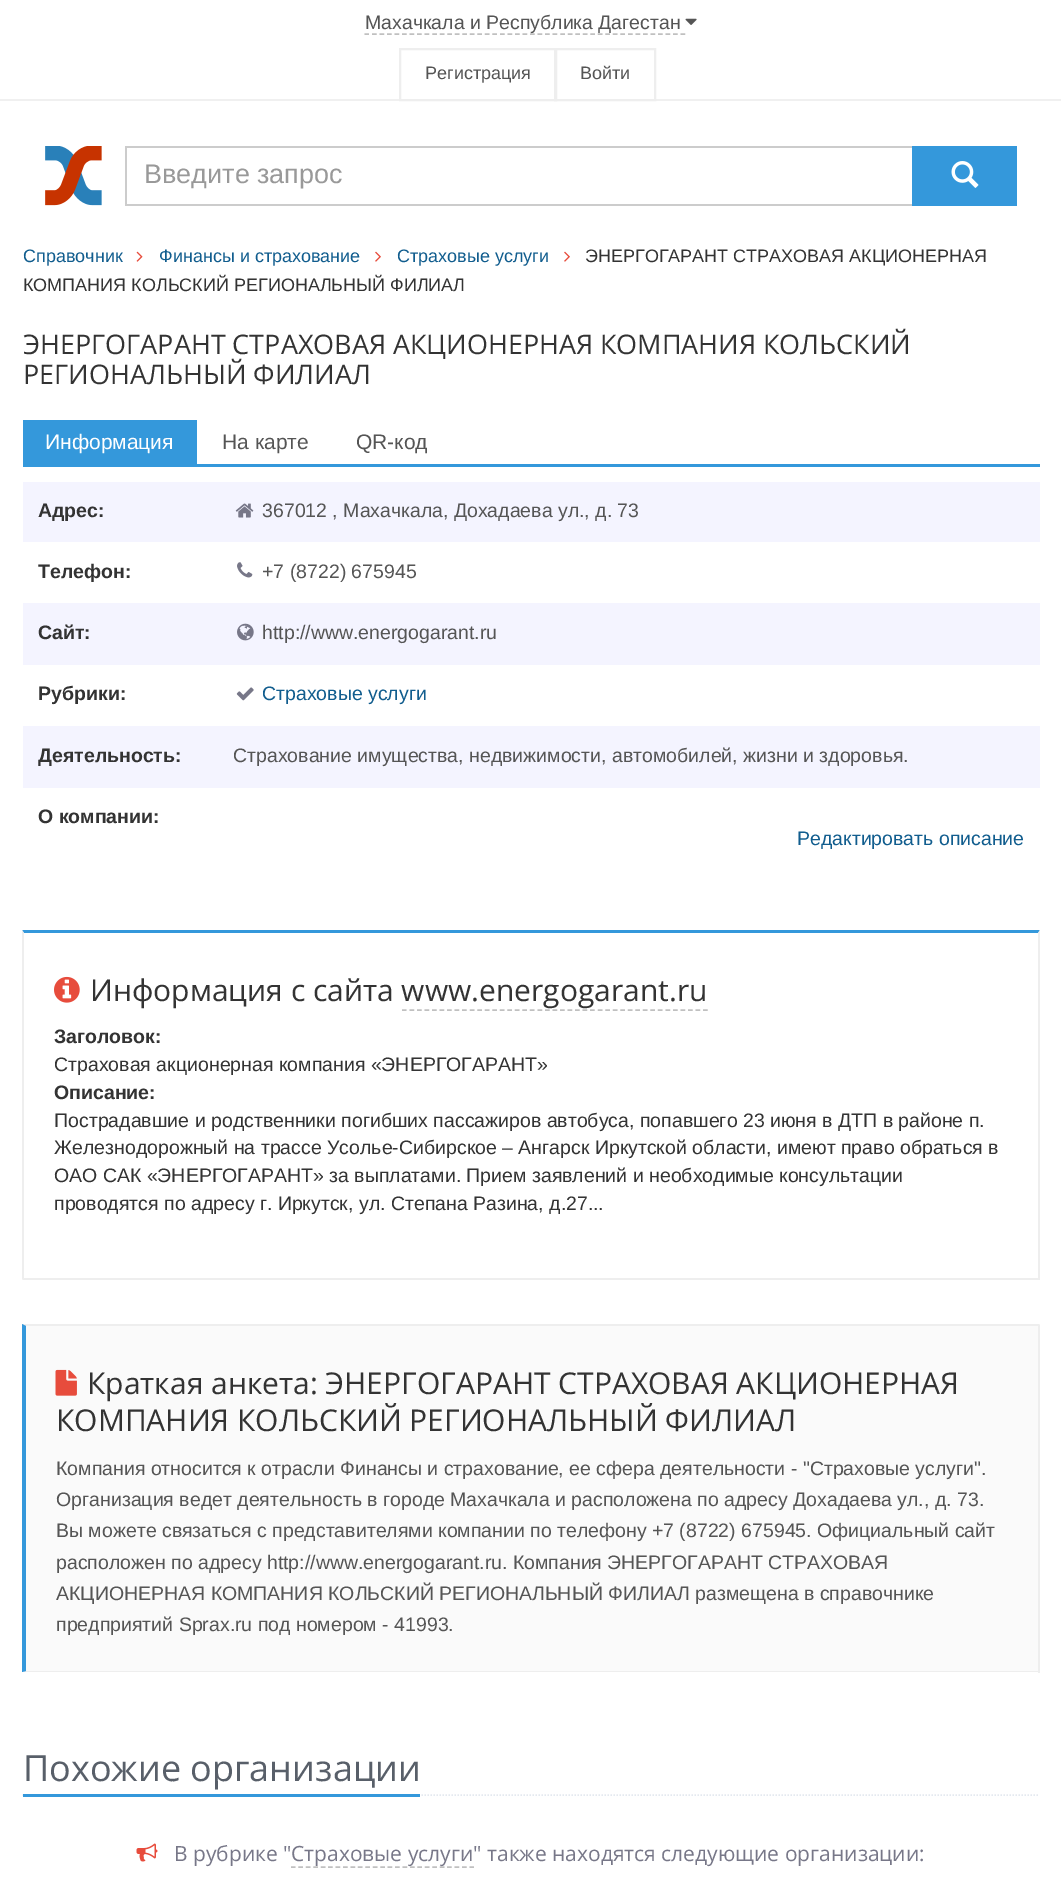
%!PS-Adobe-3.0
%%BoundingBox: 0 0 1061 1889
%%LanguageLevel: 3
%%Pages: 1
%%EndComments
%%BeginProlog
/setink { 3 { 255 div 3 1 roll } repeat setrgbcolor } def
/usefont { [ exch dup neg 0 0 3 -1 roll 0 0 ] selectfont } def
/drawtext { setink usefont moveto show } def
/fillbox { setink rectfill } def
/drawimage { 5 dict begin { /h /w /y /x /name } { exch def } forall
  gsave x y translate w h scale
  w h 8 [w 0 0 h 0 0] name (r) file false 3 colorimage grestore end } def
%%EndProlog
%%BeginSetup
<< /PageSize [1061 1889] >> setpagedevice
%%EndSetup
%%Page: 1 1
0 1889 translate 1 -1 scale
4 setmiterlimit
0 0 1061 1889 255 255 255 fillbox
0 99 1061 2 240 240 240 fillbox
192 192 192 setink
1.5 setlinewidth
[4.5 3.03] 0 setdash
364.5 34 moveto 685.5 34 lineto stroke
(Махачкала и Республика Дагестан) 365 29 /LiberationSans-Regular 19.5 85 85 85 drawtext
(assets/img1.rgb) 685 18 12 7 drawimage
238 238 238 setink
2 setlinewidth
[] 0 setdash
400 49 156 51 rectstroke
(Регистрация) 425 79 /LiberationSans-Regular 18 85 85 85 drawtext
238 238 238 setink
555 49 100 51 rectstroke
(Войти) 580 79 /LiberationSans-Regular 18 85 85 85 drawtext
(assets/img2.rgb) 45 146 57 60 drawimage
125 146 787 2 204 204 204 fillbox
125 204 787 2 204 204 204 fillbox
125 146 2 60 204 204 204 fillbox
(Введите запрос) 144 183 /LiberationSans-Regular 27 153 153 153 drawtext
912 146 105 60 52 152 219 fillbox
(assets/img3.rgb) 951 161 28 27 drawimage
(Справочник) 23 262 /LiberationSans-Regular 18 17 93 142 drawtext
(assets/img4.rgb) 136 251 7 11 drawimage
(Финансы и страхование) 159 262 /LiberationSans-Regular 18 17 93 142 drawtext
(assets/img5.rgb) 375 251 6 11 drawimage
(Страховые услуги) 397 262 /LiberationSans-Regular 18 17 93 142 drawtext
(assets/img5.rgb) 564 251 6 11 drawimage
(ЭНЕРГОГАРАНТ СТРАХОВАЯ АКЦИОНЕРНАЯ) 585 262 /LiberationSans-Regular 18 51 51 51 drawtext
(КОМПАНИЯ КОЛЬСКИЙ РЕГИОНАЛЬНЫЙ ФИЛИАЛ) 23 291 /LiberationSans-Regular 18 51 51 51 drawtext
(ЭНЕРГОГАРАНТ СТРАХОВАЯ АКЦИОНЕРНАЯ КОМПАНИЯ КОЛЬСКИЙ) 23 354 /OpenSans-Regular 27 51 51 51 drawtext
(РЕГИОНАЛЬНЫЙ ФИЛИАЛ) 23 384 /OpenSans-Regular 27 51 51 51 drawtext
23 464 1017 3 52 152 219 fillbox
23 420 174 44 52 152 219 fillbox
(Информация) 45 449 /LiberationSans-Regular 21 255 255 255 drawtext
(На карте) 222 449 /LiberationSans-Regular 21 85 85 85 drawtext
(QR-код) 356 449 /LiberationSans-Regular 21 85 85 85 drawtext
23 482 1017 60 244 244 255 fillbox
(Адрес:) 38 517 /LiberationSans-Bold 19.5 51 51 51 drawtext
(assets/img6.rgb) 235 503 19 15 drawimage
(367012 , Махачкала, Дохадаева ул., д. 73) 262 517 /LiberationSans-Regular 19.5 85 85 85 drawtext
(Телефон:) 38 578 /LiberationSans-Bold 19.5 51 51 51 drawtext
(assets/img7.rgb) 237 562 16 16 drawimage
(+7 \(8722\) 675945) 262 578 /LiberationSans-Regular 19.5 85 85 85 drawtext
23 603 1017 62 244 244 255 fillbox
(Сайт:) 38 639 /LiberationSans-Bold 19.5 51 51 51 drawtext
(assets/img8.rgb) 237 623 17 18 drawimage
(http://www.energogarant.ru) 262 639 /LiberationSans-Regular 19.5 85 85 85 drawtext
(Рубрики:) 38 700 /LiberationSans-Bold 19.5 51 51 51 drawtext
(assets/img9.rgb) 236 687 18 14 drawimage
(Страховые услуги) 262 700 /LiberationSans-Regular 19.5 17 93 142 drawtext
23 726 1017 62 244 244 255 fillbox
(Деятельность:) 38 762 /LiberationSans-Bold 19.5 51 51 51 drawtext
(Страхование имущества, недвижимости, автомобилей, жизни и здоровья.) 233 762 /LiberationSans-Regular 19.5 85 85 85 drawtext
(О компании:) 38 823 /LiberationSans-Bold 19.5 51 51 51 drawtext
(Редактировать описание) 797 845 /LiberationSans-Regular 19.5 17 93 142 drawtext
52 152 219 setink
22 930 moveto 1040 930 lineto 1038 933 lineto 24 933 lineto closepath fill
238 238 238 setink
1040 930 moveto 1040 1280 lineto 1038 1278 lineto 1038 933 lineto closepath fill
23 1278 1017 2 238 238 238 fillbox
22 1280 moveto 22 930 lineto 24 933 lineto 24 1278 lineto closepath fill
(assets/img10.rgb) 54 976 26 27 drawimage
(Информация с сайта www.energogarant.ru) 90 1001 /OpenSans-Regular 30 51 51 51 drawtext
192 192 192 setink
1.5 setlinewidth
[4.5 3.03] 0 setdash
402 1010 moveto 708 1010 lineto stroke
(Заголовок:) 54 1043 /LiberationSans-Bold 19.5 51 51 51 drawtext
(Страховая акционерная компания «ЭНЕРГОГАРАНТ») 54 1071 /LiberationSans-Regular 19.5 51 51 51 drawtext
(Описание:) 54 1099 /LiberationSans-Bold 19.5 51 51 51 drawtext
(Пострадавшие и родственники погибших пассажиров автобуса, попавшего 23 июня в ДТП в районе п.) 54 1127 /LiberationSans-Regular 19.5 51 51 51 drawtext
(Железнодорожный на трассе Усолье-Сибирское – Ангарск Иркутской области, имеют право обраться в) 54 1154 /LiberationSans-Regular 19.5 51 51 51 drawtext
(ОАО САК «ЭНЕРГОГАРАНТ» за выплатами. Прием заявлений и необходимые консультации) 54 1182 /LiberationSans-Regular 19.5 51 51 51 drawtext
(проводятся по адресу г. Иркутск, ул. Степана Разина, д.27...) 54 1210 /LiberationSans-Regular 19.5 51 51 51 drawtext
26 1326 1012 345 250 250 250 fillbox
238 238 238 setink
22 1324 moveto 1040 1324 lineto 1038 1326 lineto 26 1326 lineto closepath fill
1038 1325 2 348 238 238 238 fillbox
1040 1672 moveto 22 1672 lineto 26 1671 lineto 1038 1671 lineto closepath fill
52 152 219 setink
22 1672 moveto 22 1324 lineto 26 1326 lineto 26 1671 lineto closepath fill
(assets/img11.rgb) 55 1369 22 27 drawimage
(Краткая анкета: ЭНЕРГОГАРАНТ СТРАХОВАЯ АКЦИОНЕРНАЯ) 87 1394 /OpenSans-Regular 30 51 51 51 drawtext
(КОМПАНИЯ КОЛЬСКИЙ РЕГИОНАЛЬНЫЙ ФИЛИАЛ) 56 1431 /OpenSans-Regular 30 51 51 51 drawtext
(Компания относится к отрасли Финансы и страхование, ее сфера деятельности - "Страховые услуги".) 56 1475 /LiberationSans-Regular 19.5 85 85 85 drawtext
(Организация ведет деятельность в городе Махачкала и расположена по адресу Дохадаева ул., д. 73.) 56 1506 /LiberationSans-Regular 19.5 85 85 85 drawtext
(Вы можете связаться с представителями компании по телефону +7 \(8722\) 675945. Официальный сайт) 56 1537 /LiberationSans-Regular 19.5 85 85 85 drawtext
(расположен по адресу http://www.energogarant.ru. Компания ЭНЕРГОГАРАНТ СТРАХОВАЯ) 56 1569 /LiberationSans-Regular 19.5 85 85 85 drawtext
(АКЦИОНЕРНАЯ КОМПАНИЯ КОЛЬСКИЙ РЕГИОНАЛЬНЫЙ ФИЛИАЛ размещена в справочнике) 56 1600 /LiberationSans-Regular 19.5 85 85 85 drawtext
(предприятий Sprax.ru под номером - 41993.) 56 1631 /LiberationSans-Regular 19.5 85 85 85 drawtext
228 233 240 setink
[1.5 1.5] 0 setdash
22.5 1795 moveto 1039.5 1795 lineto stroke
23 1794 397 3 52 152 219 fillbox
(Похожие организации) 23 1781 /OpenSans-Regular 36 88 95 105 drawtext
(assets/img12.rgb) 136 1843 22 19 drawimage
(В рубрике ") 174 1861 /OpenSans-Regular 21 119 119 136 drawtext
192 192 192 setink
[4.5 2.94] 0 setdash
291 1867 moveto 474 1867 lineto stroke
(Страховые услуги" также находятся следующие организации:) 291 1861 /OpenSans-Regular 21 119 119 136 drawtext
showpage
%%EOF
